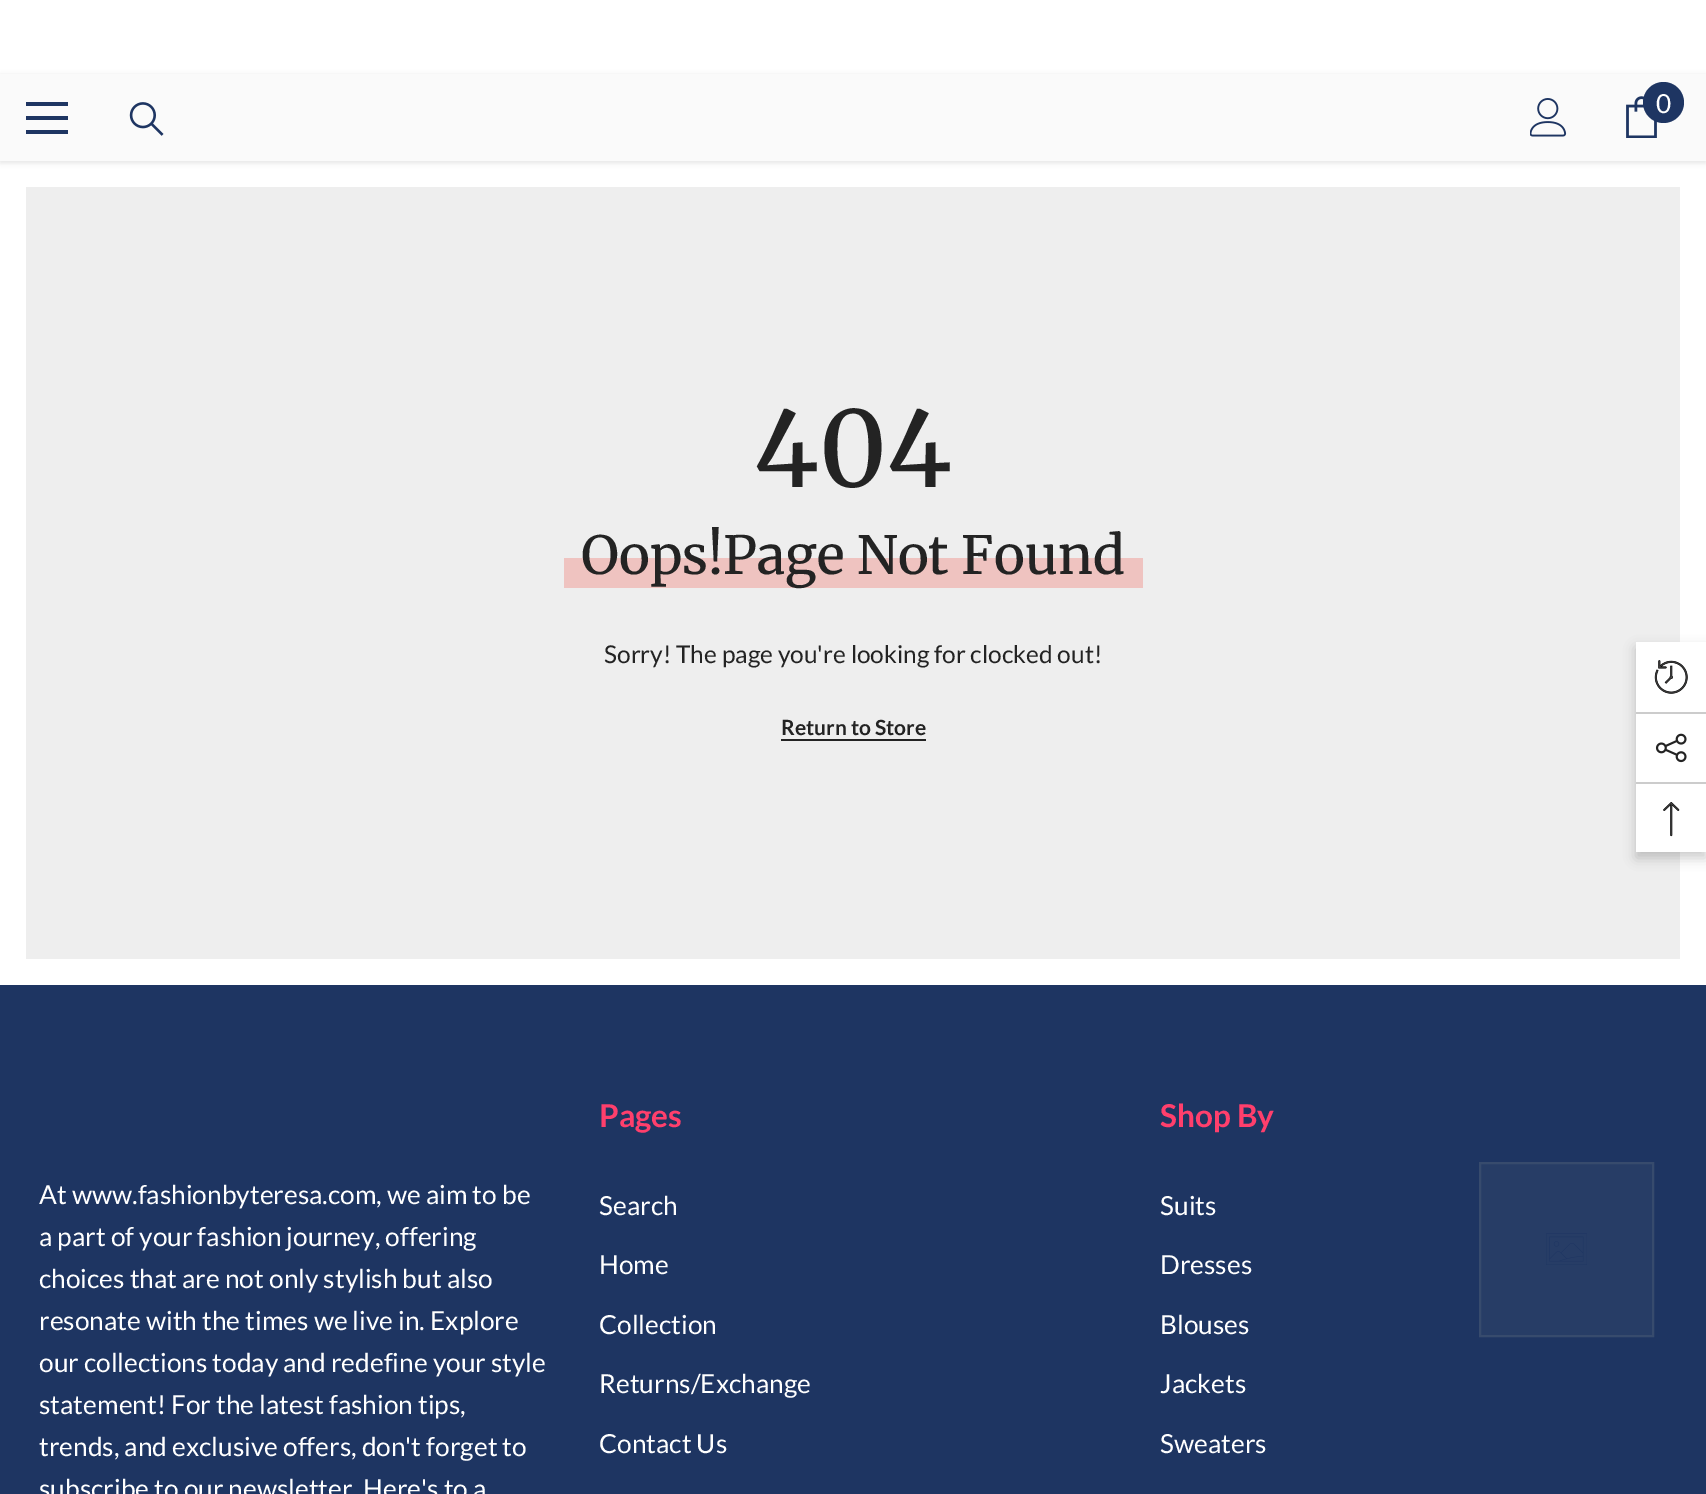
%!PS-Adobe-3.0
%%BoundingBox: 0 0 1706 1494
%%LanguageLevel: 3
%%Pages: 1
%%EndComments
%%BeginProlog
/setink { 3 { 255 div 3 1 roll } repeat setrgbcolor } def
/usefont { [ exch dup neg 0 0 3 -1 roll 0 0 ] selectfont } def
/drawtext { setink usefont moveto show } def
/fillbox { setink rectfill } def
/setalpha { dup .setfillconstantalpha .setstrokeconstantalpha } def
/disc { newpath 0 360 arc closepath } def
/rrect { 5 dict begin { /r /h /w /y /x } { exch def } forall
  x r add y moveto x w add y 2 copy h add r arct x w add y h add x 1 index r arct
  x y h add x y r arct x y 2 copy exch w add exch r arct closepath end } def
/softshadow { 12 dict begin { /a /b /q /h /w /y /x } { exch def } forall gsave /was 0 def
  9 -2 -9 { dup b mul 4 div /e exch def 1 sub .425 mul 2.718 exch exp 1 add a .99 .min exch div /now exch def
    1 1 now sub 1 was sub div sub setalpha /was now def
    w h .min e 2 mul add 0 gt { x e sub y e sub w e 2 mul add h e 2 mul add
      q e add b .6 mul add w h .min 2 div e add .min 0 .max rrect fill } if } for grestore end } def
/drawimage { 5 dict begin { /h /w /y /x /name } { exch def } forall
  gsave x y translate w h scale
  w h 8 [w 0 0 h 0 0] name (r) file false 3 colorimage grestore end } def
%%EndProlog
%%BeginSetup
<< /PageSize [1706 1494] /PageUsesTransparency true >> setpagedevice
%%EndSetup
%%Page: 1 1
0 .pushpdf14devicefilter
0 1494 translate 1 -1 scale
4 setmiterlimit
0 0 1706 1494 255 255 255 fillbox
0 0 0 setink
0 75 1706 88 0 2.5 0.1 softshadow
0 74 1706 87 250 250 250 fillbox
26 116 42 4 30 53 98 fillbox
26 102 42 4 30 53 98 fillbox
26 130 42 4 30 53 98 fillbox
(assets/img1.rgb) 129 102 35 34 drawimage
(assets/img2.rgb) 1530 98 37 39 drawimage
(assets/img3.rgb) 1626 96 31 42 drawimage
1663.5 102.5 20.5 disc fill
(0) 1656 113 /Lato-Regular 26.25 255 255 255 drawtext
26 187 1654 772 238 238 238 fillbox
(404) 754 487 /Merriweather-Medium 105 35 35 35 drawtext
564 558 579 30 239 195 192 fillbox
(Oops!Page Not Found) 581 574 /Merriweather-Medium 52.5 35 35 35 drawtext
(Sorry! The page you're looking for clocked out!) 604 663 /Lato-Regular 24.5 35 35 35 drawtext
(Return to Store) 781 735 /Lato-Bold 21 35 35 35 drawtext
781 739 145 2 35 35 35 fillbox
0 985 1706 509 30 53 98 fillbox
(At www.fashionbyteresa.com, we aim to be) 39 1204 /Lato-Regular 26.25 255 255 255 drawtext
(a part of your fashion journey, offering) 39 1246 /Lato-Regular 26.25 255 255 255 drawtext
(choices that are not only stylish but also) 39 1288 /Lato-Regular 26.25 255 255 255 drawtext
(resonate with the times we live in. Explore) 39 1330 /Lato-Regular 26.25 255 255 255 drawtext
(our collections today and redefine your style) 39 1372 /Lato-Regular 26.25 255 255 255 drawtext
(statement! For the latest fashion tips,) 39 1414 /Lato-Regular 26.25 255 255 255 drawtext
(trends, and exclusive offers, don't forget to) 39 1456 /Lato-Regular 26.25 255 255 255 drawtext
(subscribe to our newsletter. Here's to a) 39 1498 /Lato-Regular 26.25 255 255 255 drawtext
(Pages) 599 1127 /Lato-Bold 31.5 255 63 108 drawtext
(Search) 599 1215 /Lato-Regular 26.25 255 255 255 drawtext
(Home) 599 1274 /Lato-Regular 26.25 255 255 255 drawtext
(Collection) 599 1334 /Lato-Regular 26.25 255 255 255 drawtext
(Returns/Exchange) 599 1393 /Lato-Regular 26.25 255 255 255 drawtext
(Contact Us) 599 1453 /Lato-Regular 26.25 255 255 255 drawtext
(Shop By) 1160 1127 /Lato-Bold 31.5 255 63 108 drawtext
(Suits) 1160 1215 /Lato-Regular 26.25 255 255 255 drawtext
(Dresses) 1160 1274 /Lato-Regular 26.25 255 255 255 drawtext
(Blouses) 1160 1334 /Lato-Regular 26.25 255 255 255 drawtext
(Jackets) 1160 1393 /Lato-Regular 26.25 255 255 255 drawtext
(Sweaters) 1160 1453 /Lato-Regular 26.25 255 255 255 drawtext
0 0 0 setink
1636 648 70 210 0 6 0.2 softshadow
1636 642 70 210 255 255 255 fillbox
(assets/img4.rgb) 1654 660 34 34 drawimage
1636 712 70 2 204 204 204 fillbox
(assets/img5.rgb) 1655 733 32 30 drawimage
1636 782 70 2 204 204 204 fillbox
(assets/img6.rgb) 1663 802 17 35 drawimage
39 61 102 setink
1480 1163 moveto 1653 1163 lineto 1653 1336 lineto 1480 1336 lineto closepath gsave fill grestore
55 75 109 setink
2 setlinewidth
stroke
(assets/img7.rgb) 1546 1233 41 32 drawimage
.poppdf14devicefilter showpage
%%EOF
